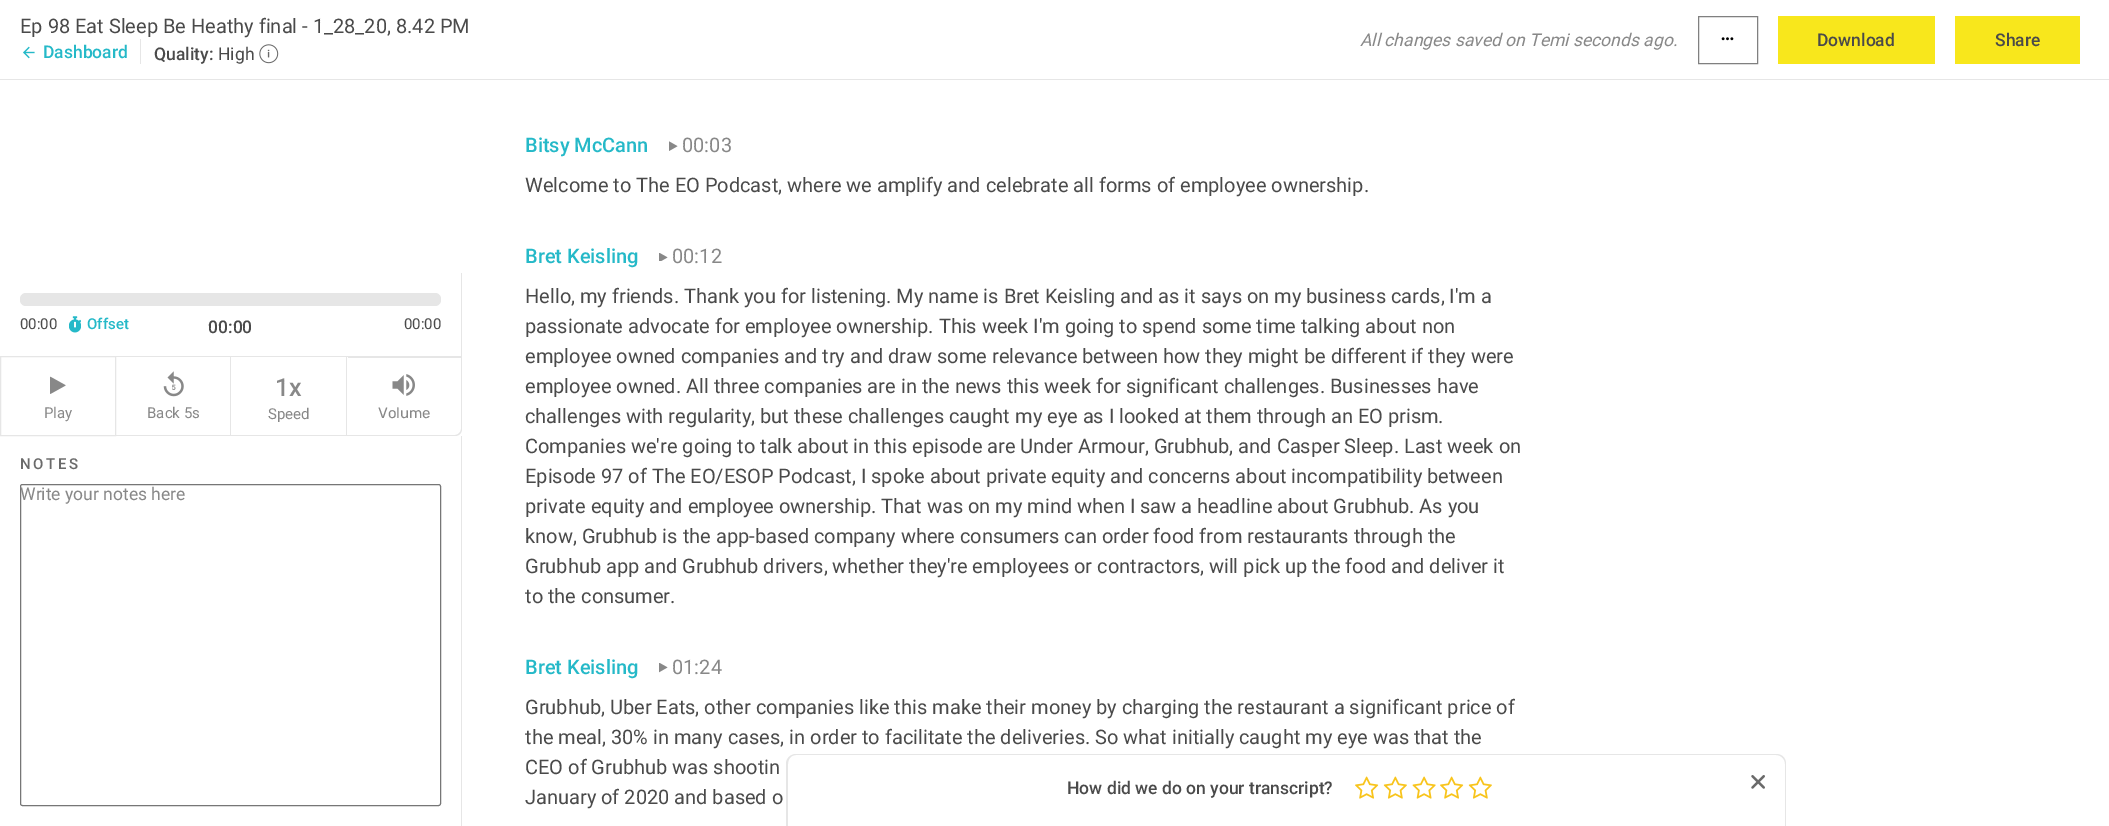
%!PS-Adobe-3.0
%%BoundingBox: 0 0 2109 826
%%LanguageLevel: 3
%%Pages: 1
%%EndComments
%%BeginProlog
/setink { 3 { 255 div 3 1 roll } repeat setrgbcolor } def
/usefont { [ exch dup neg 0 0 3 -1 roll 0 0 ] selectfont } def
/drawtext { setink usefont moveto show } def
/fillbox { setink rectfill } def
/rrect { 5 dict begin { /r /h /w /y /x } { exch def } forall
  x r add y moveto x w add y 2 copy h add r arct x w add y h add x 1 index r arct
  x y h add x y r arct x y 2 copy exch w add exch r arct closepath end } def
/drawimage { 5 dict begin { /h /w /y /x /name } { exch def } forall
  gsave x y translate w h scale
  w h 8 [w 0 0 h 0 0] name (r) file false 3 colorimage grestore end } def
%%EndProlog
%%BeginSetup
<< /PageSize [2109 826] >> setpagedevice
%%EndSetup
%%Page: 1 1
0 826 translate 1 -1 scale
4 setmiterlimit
0 0 2109 826 255 255 255 fillbox
0 79 2109 1 230 230 230 fillbox
(Ep 98 Eat Sleep Be Heathy final - 1_28_20, 8.42 PM) 20 33 /Roboto-Regular 20 74 74 74 drawtext
(assets/img1.rgb) 23 46 12 13 drawimage
(Dashboard) 43 58 /Roboto-Medium 17.5 37 185 200 drawtext
140 39 1 25 230 230 230 fillbox
(Quality:) 154 60 /Roboto-Medium 17.5 74 74 74 drawtext
(High) 218 60 /Roboto-Regular 17.5 74 74 74 drawtext
(assets/img2.rgb) 259 44 20 20 drawimage
(All changes saved on Temi seconds ago.) 1360 46 /Roboto-Italic 17.5 136 136 136 drawtext
128 128 128 setink
1698.5 16.5 59 47 rectstroke
(assets/img3.rgb) 1721 37 13 4 drawimage
1778 16 157 48 248 231 28 fillbox
(Download) 1817 46 /Roboto-Medium 17.5 74 74 74 drawtext
1955 16 125 48 248 231 28 fillbox
(Share) 1995 46 /Roboto-Medium 17.5 74 74 74 drawtext
461 273 1 83 230 230 230 fillbox
20 293 421 13 6 rrect fill
(00:00) 20 329 /Roboto-Regular 15 74 74 74 drawtext
(assets/img4.rgb) 69 316 12 17 drawimage
(Offset) 87 329 /Roboto-Medium 15 37 185 200 drawtext
(00:00) 208 333 /Roboto-Medium 17.5 74 74 74 drawtext
(00:00) 404 329 /Roboto-Regular 15 74 74 74 drawtext
230 230 230 setink
0.5 356.5 115 79 rectstroke
(assets/img5.rgb) 50 376 16 18 drawimage
(Play) 44 418 /Roboto-Regular 15 136 136 136 drawtext
116 356 232 1 230 230 230 fillbox
230 356 1 80 230 230 230 fillbox
116 435 115 1 230 230 230 fillbox
(assets/img6.rgb) 163 371 21 26 drawimage
(Back 5s) 147 418 /Roboto-Regular 15 136 136 136 drawtext
346 356 1 80 230 230 230 fillbox
231 435 117 1 230 230 230 fillbox
(1x) 275 396 /Roboto-Medium 25 136 136 136 drawtext
(Speed) 268 419 /Roboto-Regular 15 136 136 136 drawtext
230 230 230 setink
348 356 moveto 462 356 lineto 462 429 lineto 462 433 459 436 455 436 curveto 348 436 lineto closepath 348 358 moveto 461 358 lineto 461 429 lineto 461 432 458 435 455 435 curveto 348 435 lineto closepath eofill
(assets/img7.rgb) 392 374 23 22 drawimage
(Volume) 378 418 /Rubik-Regular 15 136 136 136 drawtext
461 436 1 390 230 230 230 fillbox
/Roboto-Medium 15 usefont
106 106 106 setink
20 469 moveto 2.5 0 (NOTES) ashow
118 118 118 setink
20.5 484.5 420 321 2 rrect stroke
(Write your notes here) 20 500 /Roboto-Regular 17.5 136 136 136 drawtext
(Bitsy McCann) 525 152 /Roboto-Medium 20 37 185 200 drawtext
(assets/img8.rgb) 669 141 9 10 drawimage
(00:03) 682 152 /Roboto-Regular 20 136 136 136 drawtext
(Welcome to The EO Podcast, where we amplify and celebrate all forms of employee ownership.) 525 192 /Roboto-Regular 20 74 74 74 drawtext
(Bret Keisling) 525 263 /Roboto-Medium 20 37 185 200 drawtext
(assets/img9.rgb) 659 253 9 8 drawimage
(00:12) 672 263 /Roboto-Regular 20 136 136 136 drawtext
(Hello, my friends. Thank you for listening. My name is Bret Keisling and as it says on my business cards, I'm a) 525 303 /Roboto-Regular 20 74 74 74 drawtext
(passionate advocate for employee ownership. This week I'm going to spend some time talking about non) 525 333 /Roboto-Regular 20 74 74 74 drawtext
(employee owned companies and try and draw some relevance between how they might be different if they were) 525 363 /Roboto-Regular 20 74 74 74 drawtext
(employee owned. All three companies are in the news this week for significant challenges. Businesses have) 525 393 /Roboto-Regular 20 74 74 74 drawtext
(challenges with regularity, but these challenges caught my eye as I looked at them through an EO prism.) 525 423 /Roboto-Regular 20 74 74 74 drawtext
(Companies we're going to talk about in this episode are Under Armour, Grubhub, and Casper Sleep. Last week on) 525 453 /Roboto-Regular 20 74 74 74 drawtext
(Episode 97 of The EO/ESOP Podcast, I spoke about private equity and concerns about incompatibility between) 525 483 /Roboto-Regular 20 74 74 74 drawtext
(private equity and employee ownership. That was on my mind when I saw a headline about Grubhub. As you) 525 513 /Roboto-Regular 20 74 74 74 drawtext
(know, Grubhub is the app-based company where consumers can order food from restaurants through the) 525 543 /Roboto-Regular 20 74 74 74 drawtext
(Grubhub app and Grubhub drivers, whether they're employees or contractors, will pick up the food and deliver it) 525 573 /Roboto-Regular 20 74 74 74 drawtext
(to the consumer.) 525 603 /Roboto-Regular 20 74 74 74 drawtext
(Bret Keisling) 525 674 /Roboto-Medium 20 37 185 200 drawtext
(assets/img10.rgb) 659 663 9 10 drawimage
(01:24) 672 674 /Roboto-Regular 20 136 136 136 drawtext
(Grubhub, Uber Eats, other companies like this make their money by charging the restaurant a significant price of) 525 714 /Roboto-Regular 20 74 74 74 drawtext
(the meal, 30% in many cases, in order to facilitate the deliveries. So what initially caught my eye was that the) 525 744 /Roboto-Regular 20 74 74 74 drawtext
(CEO of Grubhub was shootin) 525 774 /Roboto-Regular 20 74 74 74 drawtext
(January of 2020 and based o) 525 804 /Roboto-Regular 20 74 74 74 drawtext
230 230 230 setink
796 754 moveto 1776 754 lineto 1782 754 1786 758 1786 764 curveto 1786 826 lineto 786 826 lineto 786 764 lineto 786 758 791 754 796 754 curveto closepath 796 755 moveto 1776 755 lineto 1781 755 1785 759 1785 764 curveto 1785 826 lineto 788 826 lineto 788 764 lineto 788 759 791 755 796 755 curveto closepath eofill
(How did we do on your transcript?) 1067 794 /Roboto-Medium 17.5 74 74 74 drawtext
(assets/img11.rgb) 1355 776 24 23 drawimage
(assets/img12.rgb) 1383 776 24 23 drawimage
(assets/img13.rgb) 1412 776 24 23 drawimage
(assets/img11.rgb) 1440 776 24 23 drawimage
(assets/img12.rgb) 1468 776 24 23 drawimage
(assets/img14.rgb) 1751 775 14 14 drawimage
showpage
%%EOF
